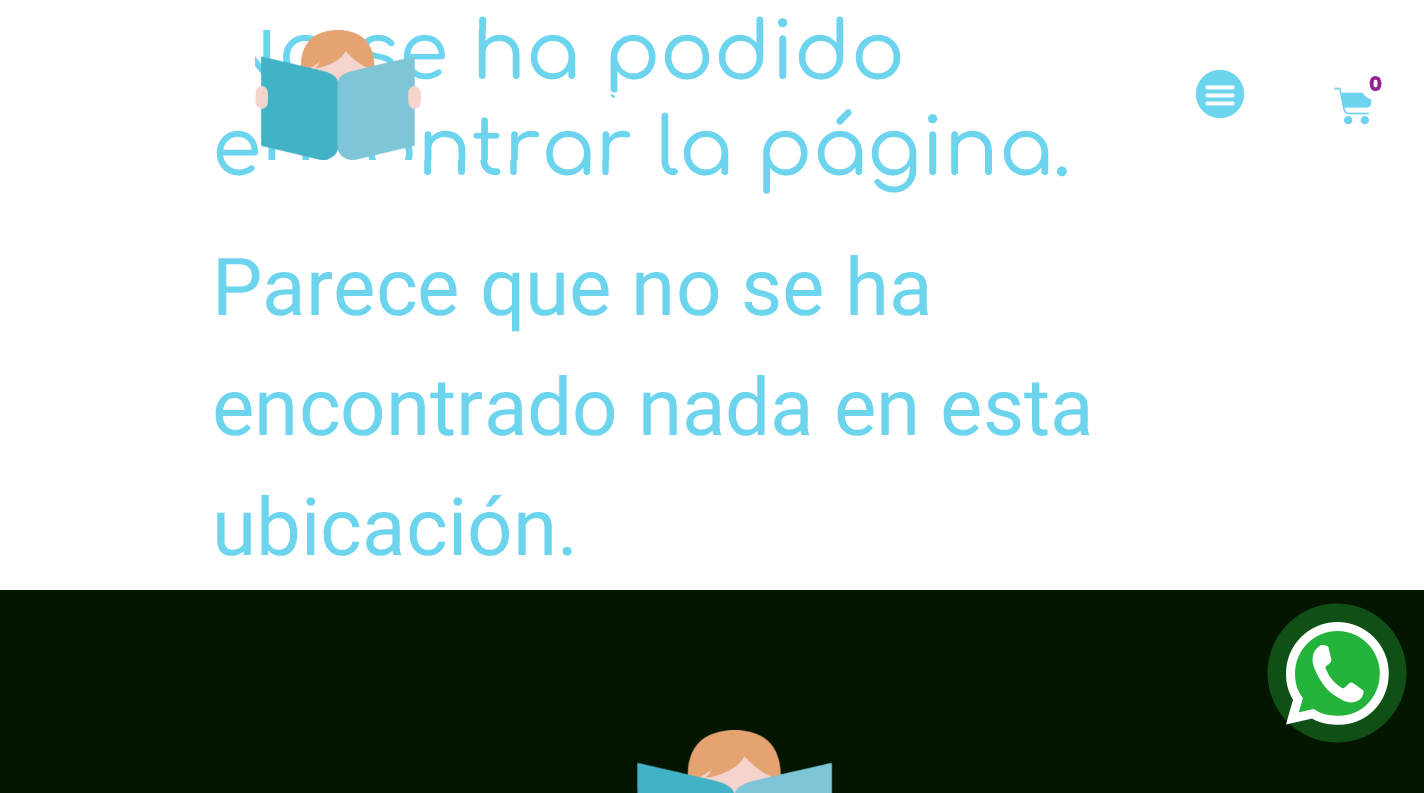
%!PS-Adobe-3.0
%%BoundingBox: 0 0 1424 793
%%LanguageLevel: 3
%%Pages: 1
%%EndComments
%%BeginProlog
/setink { 3 { 255 div 3 1 roll } repeat setrgbcolor } def
/usefont { [ exch dup neg 0 0 3 -1 roll 0 0 ] selectfont } def
/drawtext { setink usefont moveto show } def
/fillbox { setink rectfill } def
/disc { newpath 0 360 arc closepath } def
/drawimage { 5 dict begin { /h /w /y /x /name } { exch def } forall
  gsave x y translate w h scale
  w h 8 [w 0 0 h 0 0] name (r) file false 3 colorimage grestore end } def
%%EndProlog
%%BeginSetup
<< /PageSize [1424 793] >> setpagedevice
%%EndSetup
%%Page: 1 1
0 793 translate 1 -1 scale
4 setmiterlimit
0 0 1424 793 255 255 255 fillbox
(ha podido) 472 79 /Comfortaa-Medium 80 109 212 237 drawtext
(e) 212 175 /Comfortaa-Medium 80 109 212 237 drawtext
(ntrar la página.) 417 175 /Comfortaa-Medium 80 109 212 237 drawtext
(Parece que no se ha) 212 315 /Roboto-Regular 80 109 212 237 drawtext
(encontrado nada en esta) 212 435 /Roboto-Regular 80 109 212 237 drawtext
(ubicación.) 212 555 /Roboto-Regular 80 109 212 237 drawtext
(assets/img1.rgb) 255 30 363 130 drawimage
1220 94 24 disc fill
(assets/img2.rgb) 1205 85 30 21 drawimage
(assets/img3.rgb) 1334 87 38 38 drawimage
255 255 255 setink
1376 84 16 disc fill
(0) 1369 91 /Poppins-ExtraBold 20 148 36 144 drawtext
0 590 1424 203 4 22 0 fillbox
(assets/img4.rgb) 1267 603 140 140 drawimage
(assets/img5.rgb) 637 730 196 63 drawimage
showpage
%%EOF
